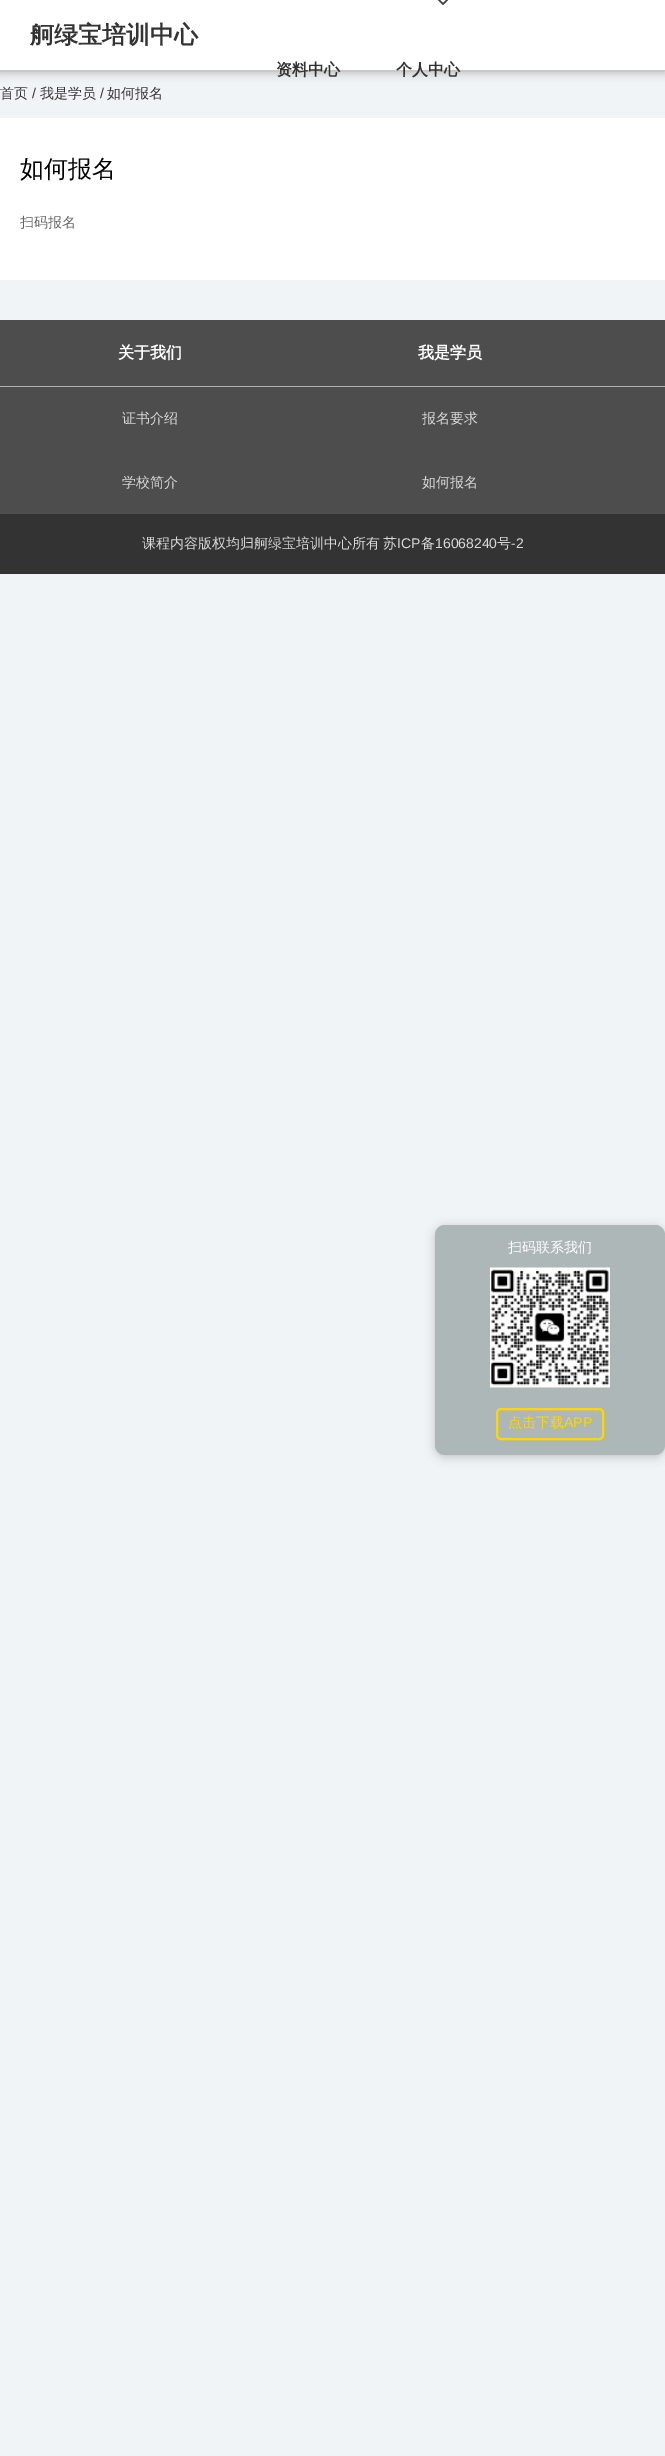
%!PS-Adobe-3.0
%%BoundingBox: 0 0 665 2456
%%LanguageLevel: 3
%%Pages: 1
%%EndComments
%%BeginProlog
/setink { 3 { 255 div 3 1 roll } repeat setrgbcolor } def
/usefont { [ exch dup neg 0 0 3 -1 roll 0 0 ] selectfont } def
/drawtext { setink usefont moveto show } def
/fillbox { setink rectfill } def
/setalpha { dup .setfillconstantalpha .setstrokeconstantalpha } def
/rrect { 5 dict begin { /r /h /w /y /x } { exch def } forall
  x r add y moveto x w add y 2 copy h add r arct x w add y h add x 1 index r arct
  x y h add x y r arct x y 2 copy exch w add exch r arct closepath end } def
/softshadow { 12 dict begin { /a /b /q /h /w /y /x } { exch def } forall gsave /was 0 def
  9 -2 -9 { dup b mul 4 div /e exch def 1 sub .425 mul 2.718 exch exp 1 add a .99 .min exch div /now exch def
    1 1 now sub 1 was sub div sub setalpha /was now def
    w h .min e 2 mul add 0 gt { x e sub y e sub w e 2 mul add h e 2 mul add
      q e add b .6 mul add w h .min 2 div e add .min 0 .max rrect fill } if } for grestore end } def
/drawimage { 5 dict begin { /h /w /y /x /name } { exch def } forall
  gsave x y translate w h scale
  w h 8 [w 0 0 h 0 0] name (r) file false 3 colorimage grestore end } def
%%EndProlog
%%BeginSetup
<< /PageSize [665 2456] /PageUsesTransparency true >> setpagedevice
%%EndSetup
%%Page: 1 1
0 .pushpdf14devicefilter
0 2456 translate 1 -1 scale
4 setmiterlimit
0 0 665 2456 241 244 247 fillbox
0 0 0 setink
0 1 665 70 0 5 0.35 softshadow
0 0 665 70 255 255 255 fillbox
(舸绿宝培训中心) 30 43 /WenQuanYiZenHei-Bold 24 51 51 51 drawtext
(assets/img1.rgb) 437 0 12 5 drawimage
(资料中心) 276 75 /WenQuanYiZenHei-Bold 16 51 51 51 drawtext
(个人中心) 396 75 /WenQuanYiZenHei-Bold 16 51 51 51 drawtext
(首页) 0 98 /WenQuanYiZenHei-Medium 14 51 51 51 drawtext
(/) 32 98 /LiberationSans-Regular 14 51 51 51 drawtext
(我是学员) 40 98 /WenQuanYiZenHei-Medium 14 51 51 51 drawtext
(/) 100 98 /LiberationSans-Regular 14 51 51 51 drawtext
(如何报名) 107 98 /WenQuanYiZenHei-Medium 14 51 51 51 drawtext
0 118 665 162 255 255 255 fillbox
(如何报名) 20 177 /WenQuanYiZenHei-Medium 24 0 0 0 drawtext
(扫码报名) 20 227 /WenQuanYiZenHei-Medium 14 102 102 102 drawtext
0 320 665 194 77 77 77 fillbox
(关于我们) 118 358 /WenQuanYiZenHei-Bold 16 255 255 255 drawtext
(证书介绍) 122 423 /WenQuanYiZenHei-Medium 14 217 217 217 drawtext
(学校简介) 122 487 /WenQuanYiZenHei-Medium 14 217 217 217 drawtext
(我是学员) 418 358 /WenQuanYiZenHei-Bold 16 255 255 255 drawtext
(报名要求) 422 423 /WenQuanYiZenHei-Medium 14 217 217 217 drawtext
(如何报名) 422 487 /WenQuanYiZenHei-Medium 14 217 217 217 drawtext
0 386 665 1 179 179 179 fillbox
0 514 665 60 51 51 51 fillbox
(课程内容版权均归舸绿宝培训中心所有) 142 548 /WenQuanYiZenHei-Medium 14 217 217 217 drawtext
(苏) 383 548 /WenQuanYiZenHei-Medium 14 217 217 217 drawtext
(ICP) 397 548 /LiberationSans-Regular 14 217 217 217 drawtext
(备) 421 548 /WenQuanYiZenHei-Medium 14 217 217 217 drawtext
(16068240) 435 548 /LiberationSans-Regular 14 217 217 217 drawtext
(号) 497 548 /WenQuanYiZenHei-Medium 14 217 217 217 drawtext
(-2) 511 548 /LiberationSans-Regular 14 217 217 217 drawtext
0 0 0 setink
435 1227 230 230 10 5 0.2 softshadow
173 183 184 setink
435 1225 230 230 10 rrect fill
(扫码联系我们) 508 1252 /WenQuanYiZenHei-Medium 14 255 255 255 drawtext
(assets/img2.rgb) 490 1267 120 121 drawimage
255 215 0 setink
2 setlinewidth
497 1409 106 30 4 rrect stroke
(点击下载) 508 1427 /WenQuanYiZenHei-Medium 14 255 215 0 drawtext
(APP) 564 1427 /LiberationSans-Regular 14 255 215 0 drawtext
.poppdf14devicefilter showpage
%%EOF
